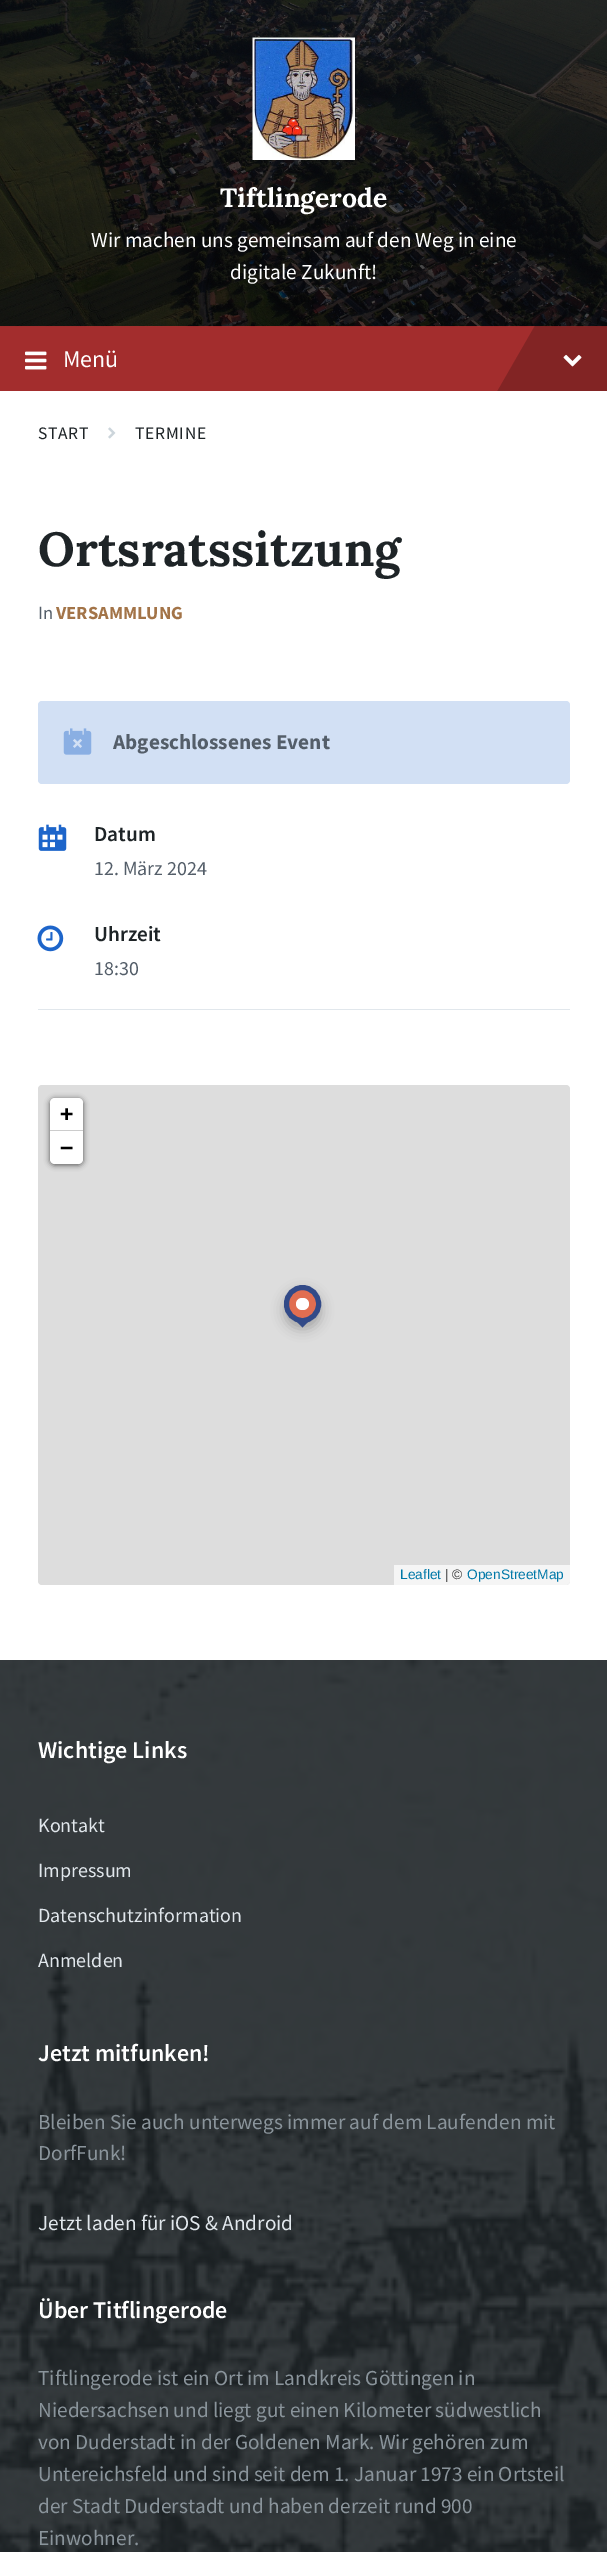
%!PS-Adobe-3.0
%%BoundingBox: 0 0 607 2552
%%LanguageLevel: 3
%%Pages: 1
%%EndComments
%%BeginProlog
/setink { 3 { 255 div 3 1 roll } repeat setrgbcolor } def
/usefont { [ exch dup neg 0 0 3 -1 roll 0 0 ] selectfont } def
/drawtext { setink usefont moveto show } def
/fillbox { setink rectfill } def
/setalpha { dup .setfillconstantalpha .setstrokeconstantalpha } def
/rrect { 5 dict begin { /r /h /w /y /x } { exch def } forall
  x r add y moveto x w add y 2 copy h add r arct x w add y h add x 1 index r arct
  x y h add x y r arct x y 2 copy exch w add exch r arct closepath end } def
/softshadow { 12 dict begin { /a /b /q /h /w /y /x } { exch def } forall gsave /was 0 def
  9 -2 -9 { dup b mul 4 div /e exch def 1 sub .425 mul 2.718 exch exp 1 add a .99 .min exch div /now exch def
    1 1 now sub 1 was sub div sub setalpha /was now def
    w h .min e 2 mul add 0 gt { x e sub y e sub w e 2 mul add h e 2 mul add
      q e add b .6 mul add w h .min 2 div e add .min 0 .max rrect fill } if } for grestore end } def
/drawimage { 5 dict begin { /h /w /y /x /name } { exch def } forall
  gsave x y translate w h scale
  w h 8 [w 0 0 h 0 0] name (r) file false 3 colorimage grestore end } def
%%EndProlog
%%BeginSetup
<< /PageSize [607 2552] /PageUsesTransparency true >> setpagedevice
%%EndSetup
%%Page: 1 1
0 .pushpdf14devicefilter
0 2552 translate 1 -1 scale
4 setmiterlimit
0 0 607 2552 255 255 255 fillbox
0 326 607 65 163 45 45 fillbox
(assets/img1.rgb) 0 0 607 327 drawimage
(assets/img2.rgb) 252 37 103 123 drawimage
(Tiftlingerode) 220 207 /Lora-Bold 26.5 255 255 255 drawtext
(Wir machen uns gemeinsam auf den Weg in eine) 91 247 /SourceSansPro-Regular 21.25 255 255 255 drawtext
(digitale Zukunft!) 230 279 /SourceSansPro-Regular 21.25 255 255 255 drawtext
(assets/img3.rgb) 25 351 22 19 drawimage
(Menü) 63 367 /SourceSansPro-Regular 24 255 255 255 drawtext
gsave
0 326 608 65 rectclip
0.2 setalpha
0 0 0 setink
559 284 moveto 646 334 lineto 581 447 lineto 494 397 lineto closepath fill
grestore
(assets/img4.rgb) 563 354 19 13 drawimage
/SourceSansPro-Regular 17.5 usefont
30 36 39 setink
38 439 moveto 0.75 0 (START) ashow
(assets/img5.rgb) 108 427 8 12 drawimage
135 439 moveto 0.75 0 (TERMINE) ashow
(Ortsratssitzung) 38 566 /Lora-Bold 47.75 30 36 39 drawtext
(In) 38 619 /SourceSansPro-Regular 18.5 84 94 105 drawtext
(VERSAMMLUNG) 56 619 /SourceSansPro-Bold 18.5 163 116 72 drawtext
210 224 244 setink
38 701 532 83 4 rrect fill
(assets/img6.rgb) 63 728 29 27 drawimage
(Abgeschlossenes Event) 113 749 /SourceSansPro-Bold 21.25 84 94 105 drawtext
38 1009 532 1 225 231 236 fillbox
(assets/img7.rgb) 38 824 29 27 drawimage
(Datum) 94 841 /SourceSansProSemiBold-SemiBold 21.25 30 36 39 drawtext
(12. März 2024) 94 875 /SourceSansPro-Regular 20 84 94 105 drawtext
(assets/img8.rgb) 37 925 27 27 drawimage
(Uhrzeit) 94 941 /SourceSansProSemiBold-SemiBold 21.25 30 36 39 drawtext
(18:30) 94 975 /SourceSansPro-Regular 20 84 94 105 drawtext
221 221 221 setink
38 1085 532 500 4 rrect fill
0 0 0 setink
50 1099 33 66 5 3 0.65 softshadow
255 255 255 setink
55 1098 moveto 78 1098 lineto 81 1098 83 1100 83 1103 curveto 83 1131 lineto 50 1131 lineto 50 1103 lineto 50 1100 52 1098 55 1098 curveto closepath fill
50 1130 33 1 204 204 204 fillbox
(+) 60 1121 /DejaVuSansMono-Bold 22 0 0 0 drawtext
255 255 255 setink
50 1131 moveto 83 1131 lineto 83 1159 lineto 83 1162 81 1164 78 1164 curveto 55 1164 lineto 52 1164 50 1162 50 1159 curveto closepath fill
(−) 60 1155 /DejaVuSansMono-Bold 22 0 0 0 drawtext
0.7 setalpha
255 255 255 setink
394 1565 moveto 570 1565 lineto 570 1581 lineto 570 1583 568 1585 566 1585 curveto 394 1585 lineto closepath fill
1 setalpha
(Leaflet) 400 1579 /LiberationSans-Regular 13.75 0 120 168 drawtext
(| ©) 445 1579 /LiberationSans-Regular 13.75 51 51 51 drawtext
(OpenStreetMap) 467 1579 /LiberationSans-Regular 13.75 0 120 168 drawtext
0 0 0 setink
284 1291 37 38 18.5 6 0.25 softshadow
225 110 81 setink
286.5 1287.5 32 33 16 rrect gsave fill grestore
50 74 136 setink
5 setlinewidth
stroke
255 255 255 setink
296 1298 13 12 6 rrect fill
50 74 136 setink
295 1320 moveto 310 1320 lineto 302.5 1327.5 lineto closepath fill
(assets/img9.rgb) 0 1660 607 892 drawimage
(Wichtige Links) 38 1758 /SourceSansProSemiBold-SemiBold 24 255 255 255 drawtext
(Kontakt) 38 1832 /SourceSansPro-Regular 20 225 231 236 drawtext
(Impressum) 38 1877 /SourceSansPro-Regular 20 225 231 236 drawtext
(Datenschutzinformation) 38 1922 /SourceSansPro-Regular 20 225 231 236 drawtext
(Anmelden) 38 1967 /SourceSansPro-Regular 20 225 231 236 drawtext
(Jetzt mitfunken!) 38 2061 /SourceSansProSemiBold-SemiBold 24 255 255 255 drawtext
(Bleiben Sie auch unterwegs immer auf dem Laufenden mit) 38 2129 /SourceSansPro-Regular 21.25 138 148 155 drawtext
(DorfFunk!) 38 2160 /SourceSansPro-Regular 21.25 138 148 155 drawtext
(Jetzt laden für iOS & Android) 38 2230 /SourceSansPro-Regular 21.25 225 231 236 drawtext
(Über Titflingerode) 38 2318 /SourceSansProSemiBold-SemiBold 24 255 255 255 drawtext
(Tiftlingerode ist ein Ort im Landkreis Göttingen in) 38 2385 /SourceSansPro-Regular 21.25 138 148 155 drawtext
(Niedersachsen und liegt gut einen Kilometer südwestlich) 38 2417 /SourceSansPro-Regular 21.25 138 148 155 drawtext
(von Duderstadt in der Goldenen Mark. Wir gehören zum) 38 2449 /SourceSansPro-Regular 21.25 138 148 155 drawtext
(Untereichsfeld und sind seit dem 1. Januar 1973 ein Ortsteil) 38 2481 /SourceSansPro-Regular 21.25 138 148 155 drawtext
(der Stadt Duderstadt und haben derzeit rund 900) 38 2513 /SourceSansPro-Regular 21.25 138 148 155 drawtext
(Einwohner.) 38 2545 /SourceSansPro-Regular 21.25 138 148 155 drawtext
.poppdf14devicefilter showpage
%%EOF
